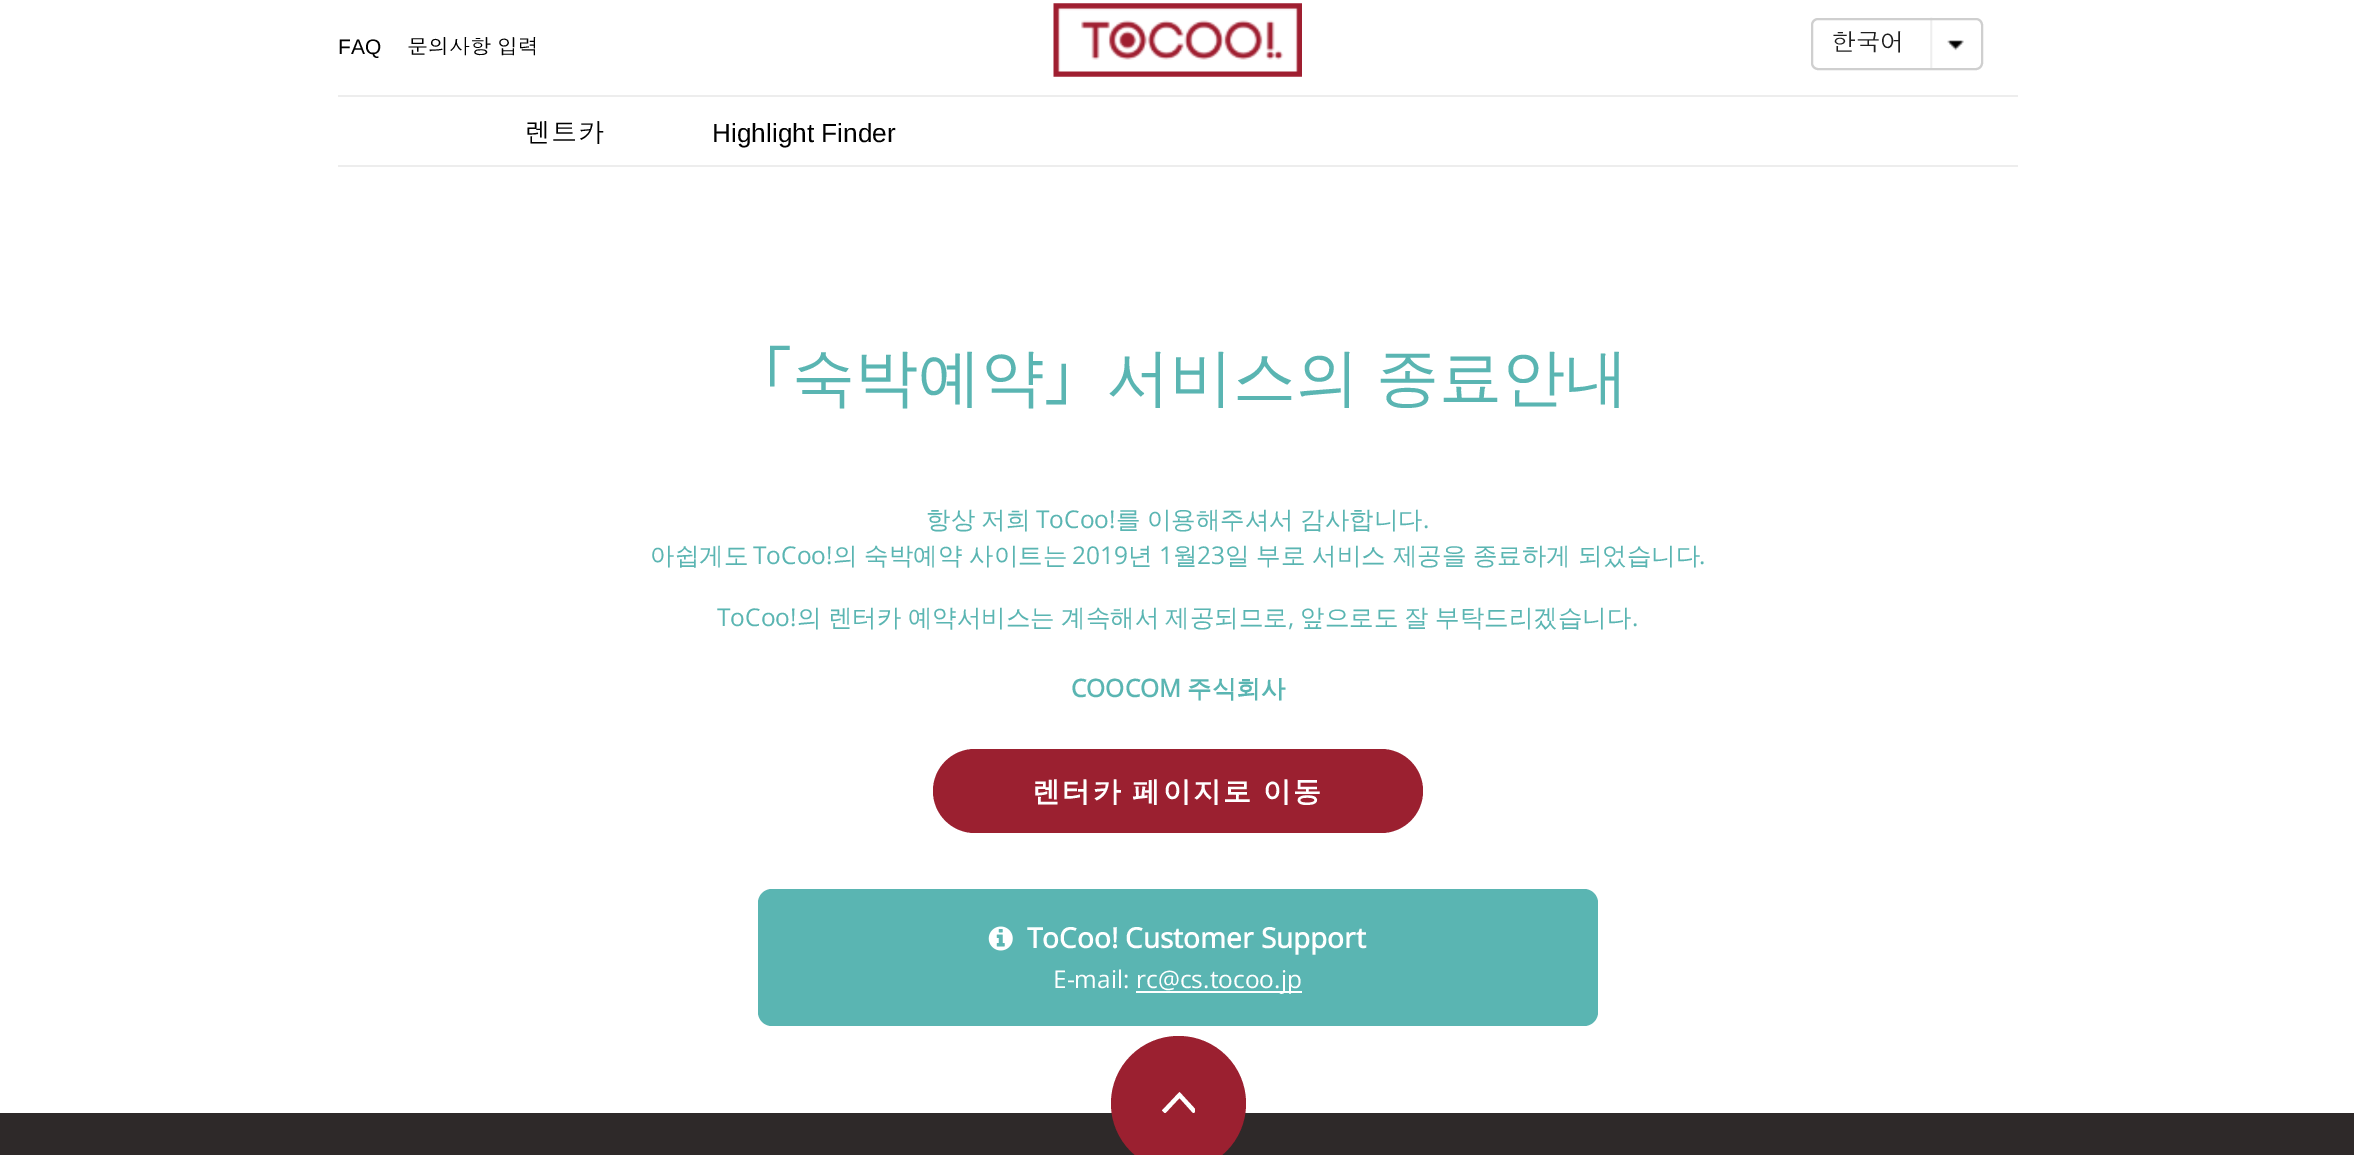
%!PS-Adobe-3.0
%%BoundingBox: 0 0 2354 1155
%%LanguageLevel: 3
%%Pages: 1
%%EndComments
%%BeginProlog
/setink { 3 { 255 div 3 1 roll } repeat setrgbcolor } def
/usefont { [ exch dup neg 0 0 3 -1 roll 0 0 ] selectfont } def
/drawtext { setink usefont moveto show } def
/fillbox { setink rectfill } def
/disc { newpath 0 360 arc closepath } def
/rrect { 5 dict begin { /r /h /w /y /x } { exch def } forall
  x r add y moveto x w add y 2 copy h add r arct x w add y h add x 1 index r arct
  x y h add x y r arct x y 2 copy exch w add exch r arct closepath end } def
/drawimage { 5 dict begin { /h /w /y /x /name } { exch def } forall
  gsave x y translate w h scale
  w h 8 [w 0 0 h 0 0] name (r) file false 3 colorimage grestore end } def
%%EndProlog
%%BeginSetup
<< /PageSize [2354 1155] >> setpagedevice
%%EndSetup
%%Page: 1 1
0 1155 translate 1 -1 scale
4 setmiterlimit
0 0 2354 1155 255 255 255 fillbox
338 165 1680 2 237 237 237 fillbox
(assets/img1.rgb) 1053 3 249 74 drawimage
(FAQ) 338 54 /LiberationSans-Regular 21 0 0 0 drawtext
/Dotum-Regular 21 usefont
407 54 moveto -1 0 32 (문의사항 입력) widthshow
(assets/img2.rgb) 1930 17 34 51 drawimage
207 207 207 setink
2 setlinewidth
1812 19 170 50 6 rrect stroke
(한국어) 1831 51 /Dotum-Regular 24.5 31 31 31 drawtext
338 95 1680 2 237 237 237 fillbox
(렌트카) 525 142 /Dotum-Regular 26.25 0 0 0 drawtext
(Highlight Finder) 712 142 /LiberationSans-Regular 26.25 0 0 0 drawtext
(「) 729 399 /NotoSansJP-Thin 63 90 181 178 drawtext
(숙박예약) 792 399 /WenQuanYiZenHei-Medium 63 90 181 178 drawtext
(」) 1044 399 /NotoSansJP-Thin 63 90 181 178 drawtext
/WenQuanYiZenHei-Medium 63 usefont
1107 399 moveto -2 0 32 (서비스의 종료안내) widthshow
/WenQuanYiZenHei-Medium 24.5 usefont
926 528 moveto -1 0 32 (항상 저희) widthshow
(ToCoo!) 1036 528 /OpenSans-Regular 24.5 90 181 178 drawtext
/WenQuanYiZenHei-Medium 24.5 usefont
1116 528 moveto -1 0 32 (를 이용해주셔서 감사합니다) widthshow
(.) 1423 528 /OpenSans-Regular 24.5 90 181 178 drawtext
(아쉽게도) 650 564 /WenQuanYiZenHei-Medium 24.5 90 181 178 drawtext
(ToCoo!) 753 564 /OpenSans-Regular 24.5 90 181 178 drawtext
/WenQuanYiZenHei-Medium 24.5 usefont
833 564 moveto -0.5 0 32 (의 숙박예약 사이트는) widthshow
(2019) 1072 564 /OpenSans-Regular 24.5 90 181 178 drawtext
(년) 1128 564 /WenQuanYiZenHei-Medium 24.5 90 181 178 drawtext
(1) 1159 564 /OpenSans-Regular 24.5 90 181 178 drawtext
(월) 1173 564 /WenQuanYiZenHei-Medium 24.5 90 181 178 drawtext
(23) 1197 564 /OpenSans-Regular 24.5 90 181 178 drawtext
/WenQuanYiZenHei-Medium 24.5 usefont
1225 564 moveto -0.5 0 32 (일 부로 서비스 제공을 종료하게 되었습니다) widthshow
(.) 1699 564 /OpenSans-Regular 24.5 90 181 178 drawtext
(ToCoo!) 717 626 /OpenSans-Regular 24.5 90 181 178 drawtext
/WenQuanYiZenHei-Medium 24.5 usefont
797 626 moveto -1 0 32 (의 렌터카 예약서비스는 계속해서 제공되므로) widthshow
(,) 1288 626 /OpenSans-Regular 24.5 90 181 178 drawtext
/WenQuanYiZenHei-Medium 24.5 usefont
1300 626 moveto -1 0 32 (앞으로도 잘 부탁드리겠습니다) widthshow
(.) 1632 626 /OpenSans-Regular 24.5 90 181 178 drawtext
(COOCOM) 1071 697 /OpenSans-Bold 24.5 90 181 178 drawtext
(주식회사) 1187 697 /WenQuanYiZenHei-Bold 24.5 90 181 178 drawtext
155 32 48 setink
933 749 490 84 42 rrect fill
/WenQuanYiZenHei-Bold 28 usefont
255 255 255 setink
1032 801 moveto -1 0 32 2.25 0 (렌터카 페이지로 이동) awidthshow
90 181 178 setink
758 889 840 137 14 rrect fill
(assets/img3.rgb) 988 926 25 25 drawimage
(ToCoo! Customer Support) 1027 948 /OpenSans-Bold 28 255 255 255 drawtext
(E-mail:) 1053 988 /OpenSans-Regular 24.5 255 255 255 drawtext
1136 991 166 2 255 255 255 fillbox
(rc@cs.tocoo.jp) 1136 988 /OpenSans-Regular 24.5 255 255 255 drawtext
0 1113 2354 42 46 41 41 fillbox
155 32 48 setink
1178.5 1103.5 67.5 disc fill
gsave
1162 1092 33 21 rectclip
255 255 255 setink
1179.5 1098 moveto 1165 1113.5 lineto 1162 1110.5 lineto 1179.5 1092 lineto 1196.5 1110.5 lineto 1193.5 1113.5 lineto closepath eofill
grestore
showpage
%%EOF
